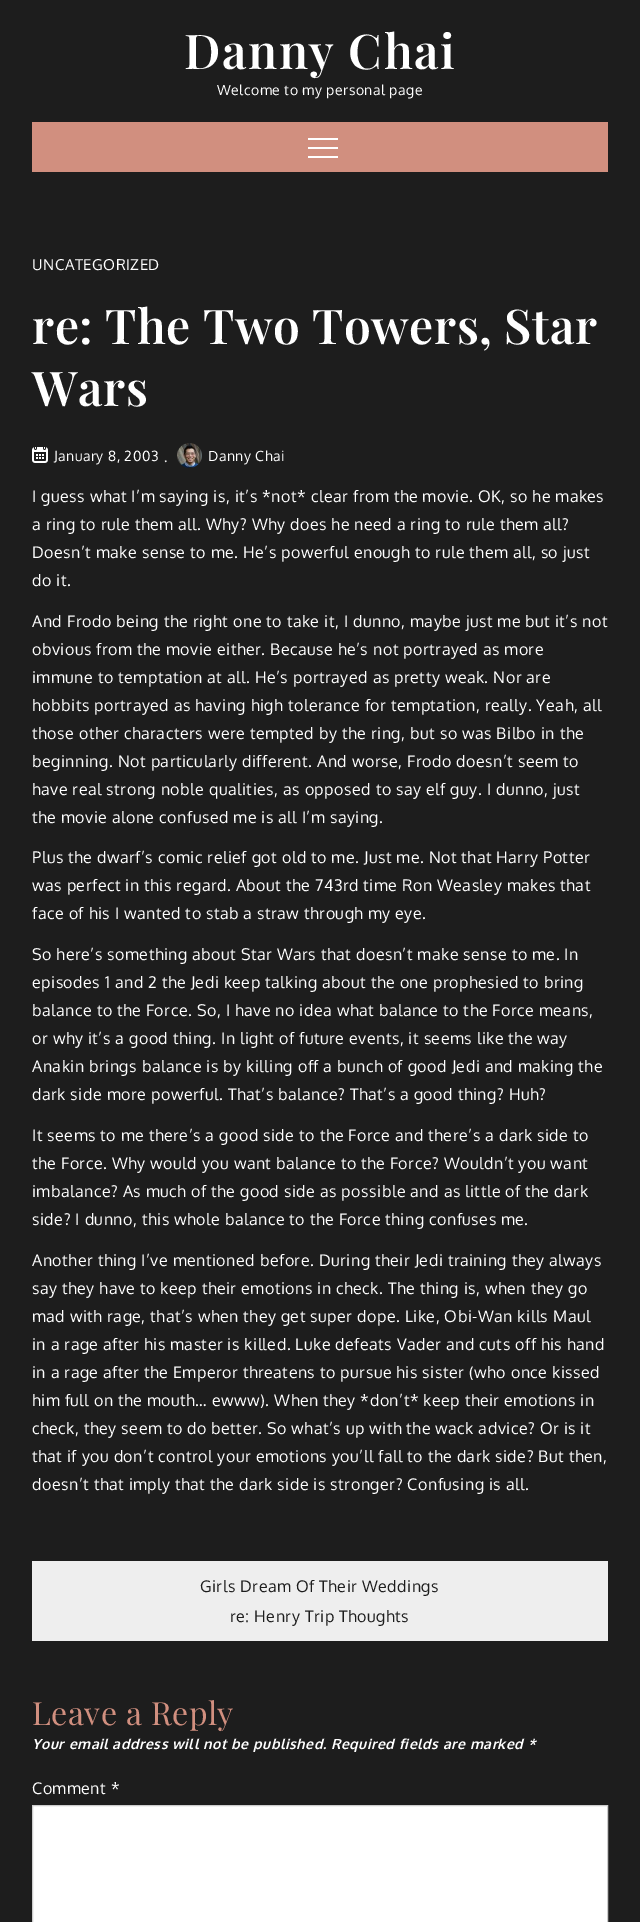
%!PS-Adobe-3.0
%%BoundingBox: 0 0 640 1922
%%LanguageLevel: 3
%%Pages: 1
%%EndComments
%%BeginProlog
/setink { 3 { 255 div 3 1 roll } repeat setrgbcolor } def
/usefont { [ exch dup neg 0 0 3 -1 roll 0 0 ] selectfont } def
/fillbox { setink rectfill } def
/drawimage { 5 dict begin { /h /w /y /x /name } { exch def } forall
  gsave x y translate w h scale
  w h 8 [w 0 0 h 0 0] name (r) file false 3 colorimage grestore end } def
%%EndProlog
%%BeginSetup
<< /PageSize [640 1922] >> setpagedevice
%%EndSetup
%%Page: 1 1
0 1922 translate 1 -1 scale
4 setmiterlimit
0 0 640 1922 29 29 29 fillbox
/PlayfairDisplay-SemiBold 48 usefont
255 255 255 setink
184 69 moveto 1.5 0 (Danny Chai) ashow
/Oxygen-Regular 14 usefont
217 95 moveto 0.5 0 (Welcome to my personal page) ashow
32 122 576 50 209 143 127 fillbox
308 138 30 2 255 255 255 fillbox
308 147 30 2 255 255 255 fillbox
308 156 30 2 255 255 255 fillbox
/Oxygen-Regular 15 usefont
32 270 moveto 0.5 0 (UNCATEGORIZED) ashow
/PlayfairDisplay-SemiBold 48 usefont
32 344 moveto 0.5 0 (re: The Two Towers, Star) ashow
32 406 moveto 0.5 0 (Wars) ashow
(assets/img1.rgb) 32 447 16 16 drawimage
/Oxygen-Regular 14 usefont
54 461 moveto 0.5 0 (January 8, 2003) ashow
164 462 moveto 0.5 0 (.) ashow
(assets/img2.rgb) 177 443 25 25 drawimage
208 461 moveto 0.5 0 (Danny Chai) ashow
/Oxygen-Regular 16 usefont
32 502 moveto 0.5 0 (I guess what I’m saying is, it’s *not* clear from the movie. OK, so he makes) ashow
32 530 moveto 0.5 0 (a ring to rule them all. Why? Why does he need a ring to rule them all?) ashow
32 558 moveto 0.5 0 (Doesn’t make sense to me. He’s powerful enough to rule them all, so just) ashow
32 586 moveto 0.5 0 (do it.) ashow
32 627 moveto 0.5 0 (And Frodo being the right one to take it, I dunno, maybe just me but it’s not) ashow
32 655 moveto 0.5 0 (obvious from the movie either. Because he’s not portrayed as more) ashow
32 683 moveto 0.5 0 (immune to temptation at all. He’s portrayed as pretty weak. Nor are) ashow
32 711 moveto 0.5 0 (hobbits portrayed as having high tolerance for temptation, really. Yeah, all) ashow
32 739 moveto 0.5 0 (those other characters were tempted by the ring, but so was Bilbo in the) ashow
32 767 moveto 0.5 0 (beginning. Not particularly different. And worse, Frodo doesn’t seem to) ashow
32 795 moveto 0.5 0 (have real strong noble qualities, as opposed to say elf guy. I dunno, just) ashow
32 823 moveto 0.5 0 (the movie alone confused me is all I’m saying.) ashow
32 863 moveto 0.5 0 (Plus the dwarf’s comic relief got old to me. Just me. Not that Harry Potter) ashow
32 891 moveto 0.5 0 (was perfect in this regard. About the 743rd time Ron Weasley makes that) ashow
32 919 moveto 0.5 0 (face of his I wanted to stab a straw through my eye.) ashow
32 960 moveto 0.5 0 (So here’s something about Star Wars that doesn’t make sense to me. In) ashow
32 988 moveto 0.5 0 (episodes 1 and 2 the Jedi keep talking about the one prophesied to bring) ashow
32 1016 moveto 0.5 0 (balance to the Force. So, I have no idea what balance to the Force means,) ashow
32 1044 moveto 0.5 0 (or why it’s a good thing. In light of future events, it seems like the way) ashow
32 1072 moveto 0.5 0 (Anakin brings balance is by killing off a bunch of good Jedi and making the) ashow
32 1100 moveto 0.5 0 (dark side more powerful. That’s balance? That’s a good thing? Huh?) ashow
32 1141 moveto 0.5 0 (It seems to me there’s a good side to the Force and there’s a dark side to) ashow
32 1169 moveto 0.5 0 (the Force. Why would you want balance to the Force? Wouldn’t you want) ashow
32 1197 moveto 0.5 0 (imbalance? As much of the good side as possible and as little of the dark) ashow
32 1225 moveto 0.5 0 (side? I dunno, this whole balance to the Force thing confuses me.) ashow
32 1266 moveto 0.5 0 (Another thing I’ve mentioned before. During their Jedi training they always) ashow
32 1294 moveto 0.5 0 (say they have to keep their emotions in check. The thing is, when they go) ashow
32 1322 moveto 0.5 0 (mad with rage, that’s when they get super dope. Like, Obi-Wan kills Maul) ashow
32 1350 moveto 0.5 0 (in a rage after his master is killed. Luke defeats Vader and cuts off his hand) ashow
32 1378 moveto 0.5 0 (in a rage after the Emperor threatens to pursue his sister \(who once kissed) ashow
32 1406 moveto 0.5 0 (him full on the mouth… ewww\). When they *don’t* keep their emotions in) ashow
32 1434 moveto 0.5 0 (check, they seem to do better. So what’s up with the wack advice? Or is it) ashow
32 1462 moveto 0.5 0 (that if you don’t control your emotions you’ll fall to the dark side? But then,) ashow
32 1490 moveto 0.5 0 (doesn’t that imply that the dark side is stronger? Confusing is all.) ashow
32 1561 576 80 238 238 238 fillbox
29 29 29 setink
200 1592 moveto 0.5 0 (Girls Dream Of Their Weddings) ashow
230 1622 moveto 0.5 0 (re: Henry Trip Thoughts) ashow
/PlayfairDisplay-Regular 32 usefont
209 143 127 setink
32 1725 moveto 0.5 0 (Leave a Reply) ashow
/Oxygen-BoldItalic 14 usefont
255 255 255 setink
32 1749 moveto 0.5 0 (Your email address will not be published. Required fields are marked *) ashow
/Oxygen-Regular 16 usefont
32 1794 moveto 0.5 0 (Comment *) ashow
32.5 1805.5 moveto 607.5 1805.5 lineto 607.5 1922.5 lineto 32.5 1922.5 lineto closepath gsave fill grestore
204 204 204 setink
stroke
showpage
%%EOF
